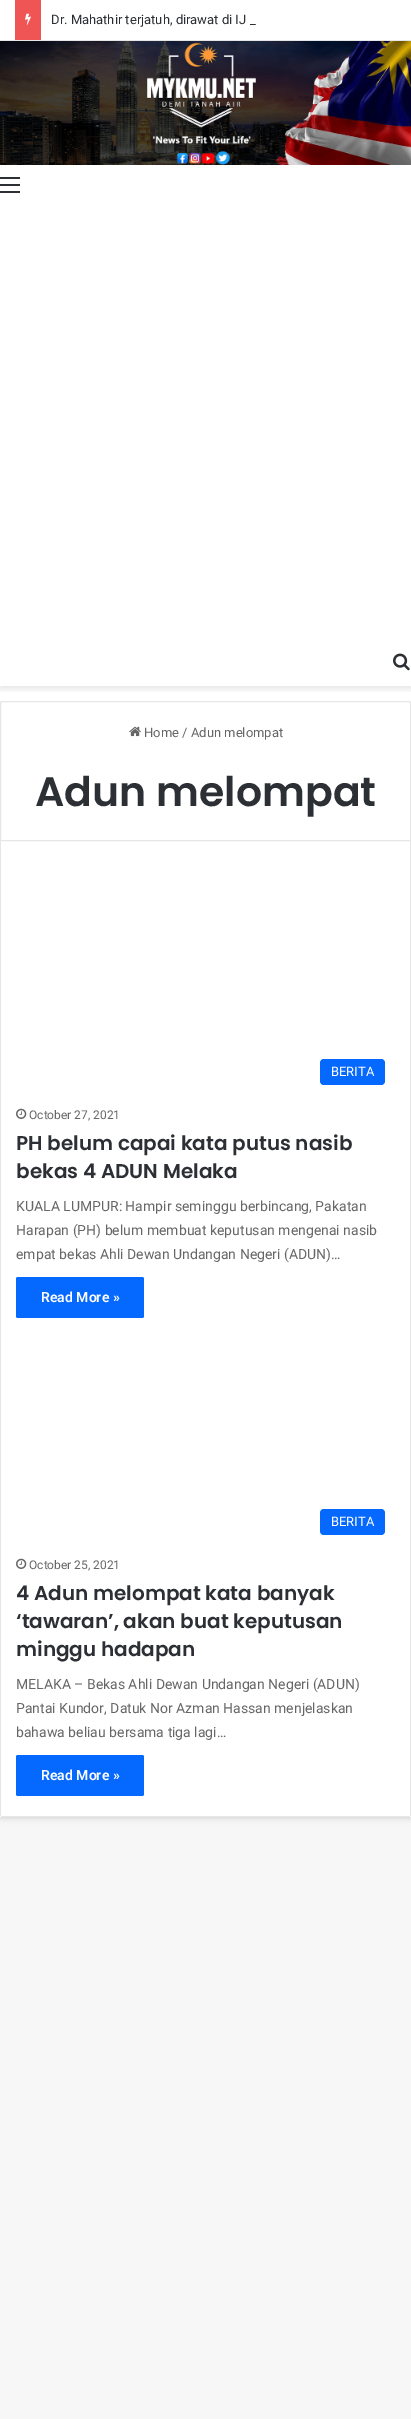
%!PS-Adobe-3.0
%%BoundingBox: 0 0 411 2419
%%LanguageLevel: 3
%%Pages: 1
%%EndComments
%%BeginProlog
/setink { 3 { 255 div 3 1 roll } repeat setrgbcolor } def
/usefont { [ exch dup neg 0 0 3 -1 roll 0 0 ] selectfont } def
/drawtext { setink usefont moveto show } def
/fillbox { setink rectfill } def
/setalpha { dup .setfillconstantalpha .setstrokeconstantalpha } def
/rrect { 5 dict begin { /r /h /w /y /x } { exch def } forall
  x r add y moveto x w add y 2 copy h add r arct x w add y h add x 1 index r arct
  x y h add x y r arct x y 2 copy exch w add exch r arct closepath end } def
/softshadow { 12 dict begin { /a /b /q /h /w /y /x } { exch def } forall gsave /was 0 def
  9 -2 -9 { dup b mul 4 div /e exch def 1 sub .425 mul 2.718 exch exp 1 add a .99 .min exch div /now exch def
    1 1 now sub 1 was sub div sub setalpha /was now def
    w h .min e 2 mul add 0 gt { x e sub y e sub w e 2 mul add h e 2 mul add
      q e add b .6 mul add w h .min 2 div e add .min 0 .max rrect fill } if } for grestore end } def
/drawimage { 5 dict begin { /h /w /y /x /name } { exch def } forall
  gsave x y translate w h scale
  w h 8 [w 0 0 h 0 0] name (r) file false 3 colorimage grestore end } def
%%EndProlog
%%BeginSetup
<< /PageSize [411 2419] /PageUsesTransparency true >> setpagedevice
%%EndSetup
%%Page: 1 1
0 .pushpdf14devicefilter
0 2419 translate 1 -1 scale
4 setmiterlimit
0 0 411 2419 247 247 247 fillbox
171 171 171 setink
0 1 411 1817 0 3.5 0.5 softshadow
0 165 411 1652 255 255 255 fillbox
gsave
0 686 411 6 rectclip
0 0 0 setink
0 44 411 645 0 3.5 0.1 softshadow
grestore
0 0 411 40 255 255 255 fillbox
0 40 411 1 230 230 230 fillbox
15 0 26 40 240 85 85 fillbox
(assets/img1.rgb) 25 13 6 12 drawimage
(Dr. Mahathir terjatuh, dirawat di IJ) 51 24 /Roboto-Regular 13 44 47 52 drawtext
(_) 250 24 /Roboto-Regular 13 44 47 52 drawtext
(assets/img2.rgb) 0 41 411 124 drawimage
0 184 20 2 44 47 52 fillbox
0 177 20 2 44 47 52 fillbox
0 191 20 2 44 47 52 fillbox
(assets/img3.rgb) 393 653 17 18 drawimage
230 230 230 setink
2 701.5 moveto 409 701.5 lineto 410 701.5 410.5 702 410.5 703 curveto 410.5 840.5 lineto 0.5 840.5 lineto 0.5 703 lineto 0.5 702 1 701.5 2 701.5 curveto closepath stroke
(assets/img4.rgb) 129 726 12 11 drawimage
(Home / Adun melompat) 144 737 /Roboto-Regular 13 102 102 102 drawtext
(Adun melompat) 35 806 /Poppins-SemiBold 41 44 47 52 drawtext
410 841 1 975 230 230 230 fillbox
1 1816 409 1 230 230 230 fillbox
0 841 1 975 230 230 230 fillbox
6 105 255 setink
320 1059 65 26 4 rrect fill
(BERITA) 331 1076 /Roboto-Regular 13 255 255 255 drawtext
(assets/img5.rgb) 16 1108 11 11 drawimage
(October 27, 2021) 29 1119 /Roboto-Regular 12 102 102 102 drawtext
(PH belum capai kata putus nasib) 16 1150 /Poppins-SemiBold 20 44 47 52 drawtext
(bekas 4 ADUN Melaka) 16 1178 /Poppins-SemiBold 20 44 47 52 drawtext
(KUALA LUMPUR: Hampir seminggu berbincang, Pakatan) 16 1211 /Roboto-Regular 14 102 102 102 drawtext
(Harapan \(PH\) belum membuat keputusan mengenai nasib) 16 1235 /Roboto-Regular 14 102 102 102 drawtext
(empat bekas Ahli Dewan Undangan Negeri \(ADUN\)…) 16 1259 /Roboto-Regular 14 102 102 102 drawtext
6 105 255 setink
16 1277 128 41 2 rrect fill
(Read More ») 41 1302 /Roboto-SemiBold 14 255 255 255 drawtext
6 105 255 setink
320 1509 65 26 4 rrect fill
(BERITA) 331 1526 /Roboto-Regular 13 255 255 255 drawtext
(assets/img5.rgb) 16 1558 11 11 drawimage
(October 25, 2021) 29 1569 /Roboto-Regular 12 102 102 102 drawtext
(4 Adun melompat kata banyak) 16 1600 /Poppins-SemiBold 20 44 47 52 drawtext
(‘tawaran’, akan buat keputusan) 16 1628 /Poppins-SemiBold 20 44 47 52 drawtext
(minggu hadapan) 16 1656 /Poppins-SemiBold 20 44 47 52 drawtext
(MELAKA – Bekas Ahli Dewan Undangan Negeri \(ADUN\)) 16 1689 /Roboto-Regular 14 102 102 102 drawtext
(Pantai Kundor, Datuk Nor Azman Hassan menjelaskan) 16 1713 /Roboto-Regular 14 102 102 102 drawtext
(bahawa beliau bersama tiga lagi…) 16 1737 /Roboto-Regular 14 102 102 102 drawtext
6 105 255 setink
16 1755 128 41 2 rrect fill
(Read More ») 41 1780 /Roboto-SemiBold 14 255 255 255 drawtext
.poppdf14devicefilter showpage
%%EOF
